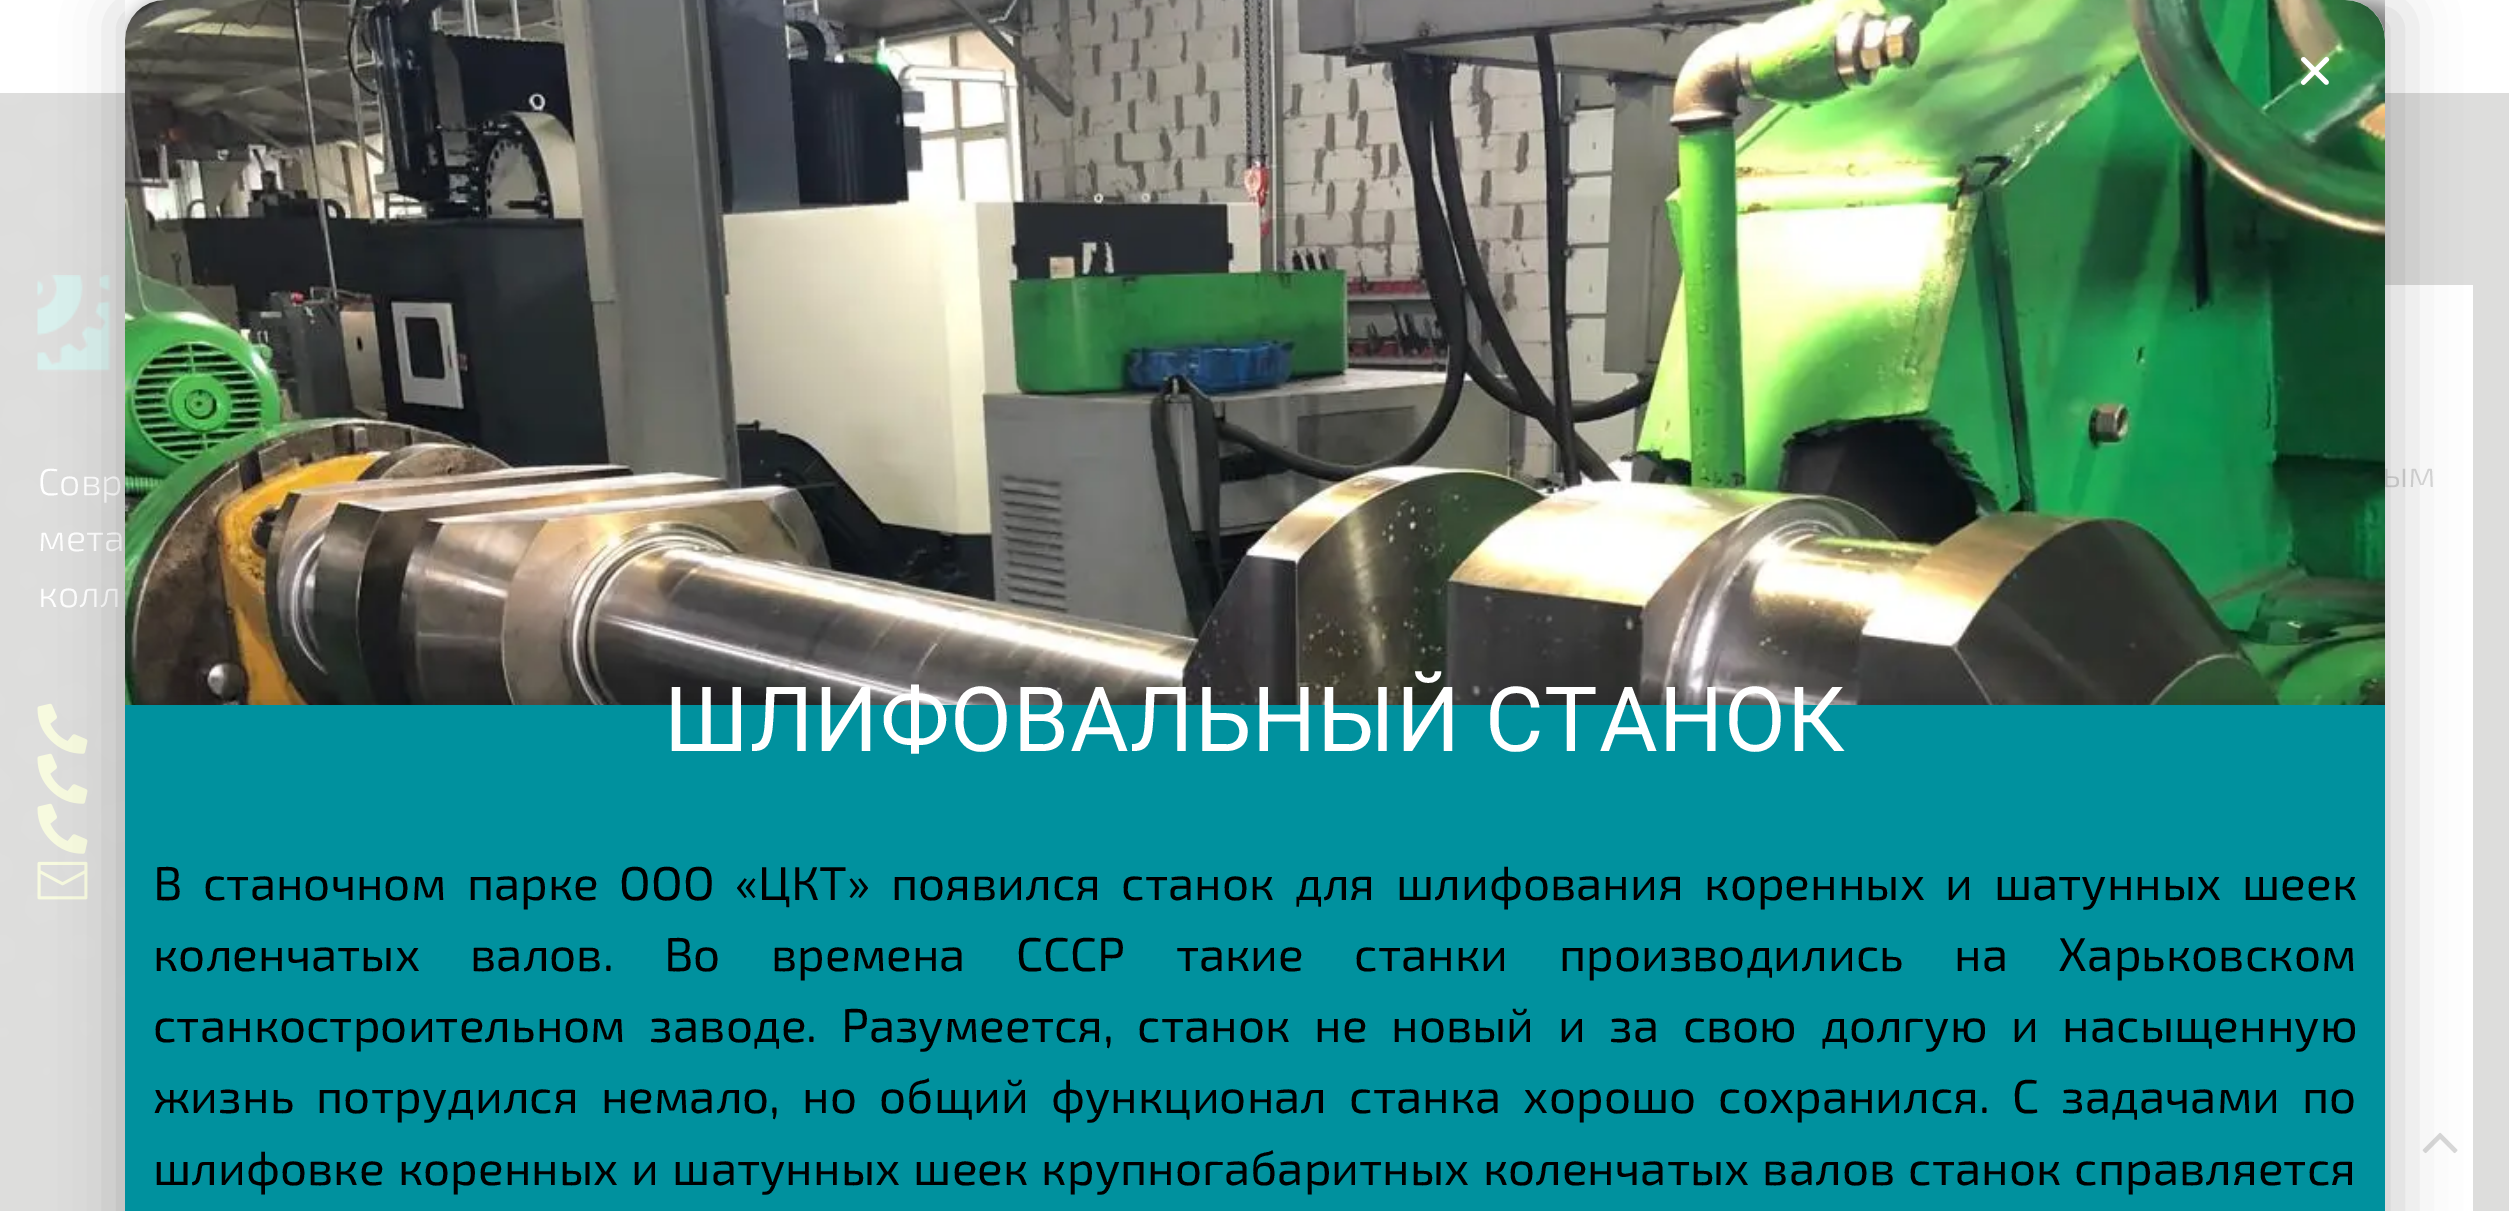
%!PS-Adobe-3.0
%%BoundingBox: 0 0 2509 1211
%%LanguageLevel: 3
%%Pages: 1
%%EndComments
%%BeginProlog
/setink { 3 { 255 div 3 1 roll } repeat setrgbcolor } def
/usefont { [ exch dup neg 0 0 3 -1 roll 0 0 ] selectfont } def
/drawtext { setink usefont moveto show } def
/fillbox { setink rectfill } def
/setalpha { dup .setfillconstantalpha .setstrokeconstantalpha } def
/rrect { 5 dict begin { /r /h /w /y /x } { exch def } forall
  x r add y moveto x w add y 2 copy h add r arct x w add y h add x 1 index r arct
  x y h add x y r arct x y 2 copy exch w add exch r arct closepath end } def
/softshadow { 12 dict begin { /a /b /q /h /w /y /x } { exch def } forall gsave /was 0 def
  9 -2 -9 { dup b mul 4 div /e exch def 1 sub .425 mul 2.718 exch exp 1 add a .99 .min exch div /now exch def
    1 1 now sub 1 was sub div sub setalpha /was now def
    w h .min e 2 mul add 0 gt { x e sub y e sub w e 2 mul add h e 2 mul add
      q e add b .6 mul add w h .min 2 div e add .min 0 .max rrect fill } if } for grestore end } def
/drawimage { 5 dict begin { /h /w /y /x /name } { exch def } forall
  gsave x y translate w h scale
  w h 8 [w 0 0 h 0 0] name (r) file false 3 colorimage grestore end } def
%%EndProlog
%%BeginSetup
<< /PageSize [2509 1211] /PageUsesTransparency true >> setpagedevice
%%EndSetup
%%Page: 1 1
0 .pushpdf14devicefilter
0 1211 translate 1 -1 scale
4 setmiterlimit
0 0 2509 1211 255 255 255 fillbox
0 93 2509 1118 221 221 220 fillbox
(assets/img1.rgb) 0 93 125 1021 drawimage
(assets/img2.rgb) 37 275 74 97 drawimage
(Совр) 38 495 /Exo2-Light 37.5 255 255 255 drawtext
(мета) 38 551 /Exo2-Light 37.5 255 255 255 drawtext
(колл) 38 607 /Exo2-Light 37.5 255 255 255 drawtext
(assets/img3.rgb) 37 703 51 51 drawimage
(assets/img4.rgb) 37 753 51 51 drawimage
(assets/img5.rgb) 37 803 51 51 drawimage
(assets/img6.rgb) 37 861 51 39 drawimage
2385 285 88 926 255 255 255 fillbox
(ым) 2382 487 /Exo2-Light 37.5 217 217 217 drawtext
(assets/img9.rgb) 2422 1132 36 22 drawimage
0 0 0 setink
123 13 2275 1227 0 29 0.2 softshadow
125 0 2260 40 255 255 255 fillbox
gsave
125 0 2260 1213 rectclip
0 0 0 setink
123 -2 2305 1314 63 12.5 0.5 softshadow
grestore
(assets/img8.rgb) 125 0 2260 705 drawimage
(assets/img7.rgb) 2300 56 30 29 drawimage
gsave
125 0 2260 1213 rectclip
0 0 0 setink
125 715 2310 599 65 12.5 0.5 softshadow
grestore
125 705 2260 506 0 145 158 fillbox
/Roboto-Regular 90 usefont
255 255 255 setink
664 751 moveto 1 0 (ШЛИФОВАЛЬНЫЙ СТАНОК) ashow
/Exo2-Regular 47.5 usefont
0 0 0 setink
153 900 moveto 9.9 0 32 (В станочном парке ООО «ЦКТ» появился станок для шлифования коренных и шатунных шеек) widthshow
153 971 moveto 39.75 0 32 (коленчатых валов. Во времена СССР такие станки производились на Харьковском) widthshow
153 1042 moveto 13 0 32 (станкостроительном заводе. Разумеется, станок не новый и за свою долгую и насыщенную) widthshow
153 1113 moveto 11.5 0 32 (жизнь потрудился немало, но общий функционал станка хорошо сохранился. С задачами по) widthshow
153 1185 moveto 2.5 0 32 (шлифовке коренных и шатунных шеек крупногабаритных коленчатых валов станок справляется) widthshow
.poppdf14devicefilter showpage
%%EOF
